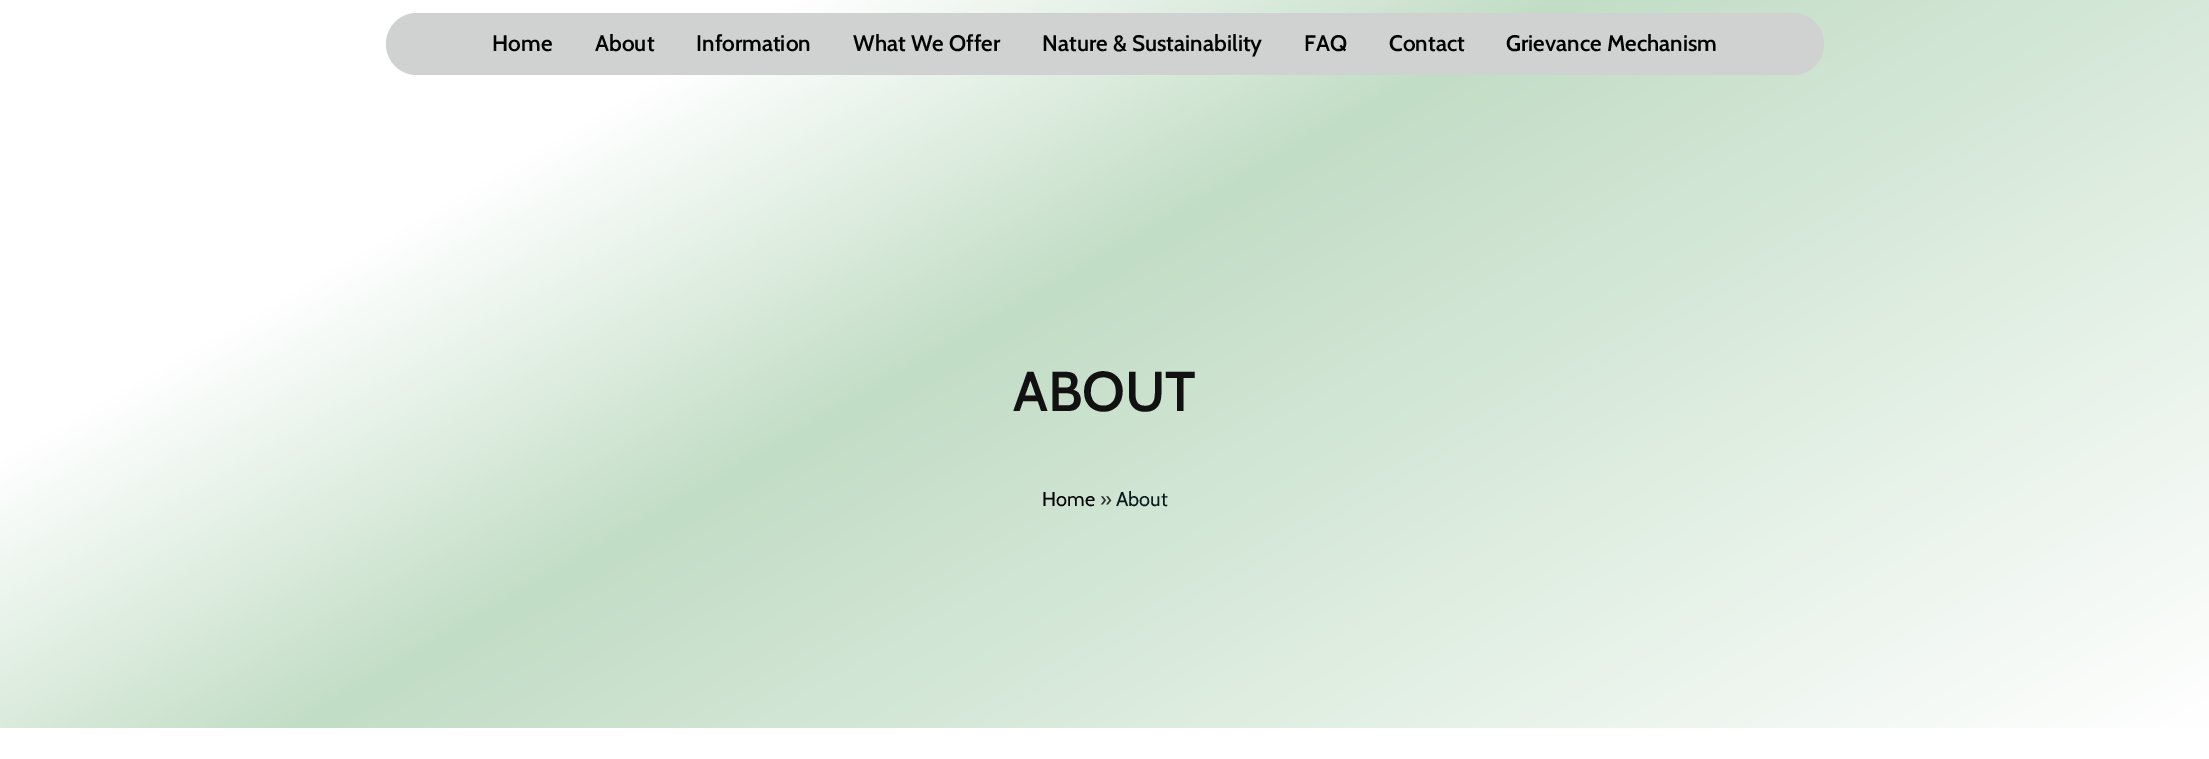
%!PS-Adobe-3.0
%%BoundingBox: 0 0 2209 759
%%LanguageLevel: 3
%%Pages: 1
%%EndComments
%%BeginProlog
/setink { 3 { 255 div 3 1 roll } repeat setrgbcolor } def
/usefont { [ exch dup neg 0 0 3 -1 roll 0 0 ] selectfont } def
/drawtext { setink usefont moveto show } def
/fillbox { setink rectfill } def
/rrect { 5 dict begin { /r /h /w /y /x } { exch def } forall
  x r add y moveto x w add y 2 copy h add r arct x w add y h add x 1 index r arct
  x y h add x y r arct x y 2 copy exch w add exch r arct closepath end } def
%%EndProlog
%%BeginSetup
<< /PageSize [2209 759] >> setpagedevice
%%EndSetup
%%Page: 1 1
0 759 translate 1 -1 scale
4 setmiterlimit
0 0 2209 759 255 255 255 fillbox
gsave 0 0 moveto 2209 0 lineto 2209 728 lineto 0 728 lineto closepath clip newpath
<< /ShadingType 2 /ColorSpace /DeviceRGB /Coords [671 -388 1539 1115] /Extend [true true] /Function << /FunctionType 3 /Domain [0 1] /Functions [<< /FunctionType 2 /Domain [0 1] /C0 [1 1 1] /C1 [1 1 1] /N 1 >> << /FunctionType 2 /Domain [0 1] /C0 [1 1 1] /C1 [0.761 0.867 0.776] /N 1 >> << /FunctionType 2 /Domain [0 1] /C0 [0.761 0.867 0.776] /C1 [1 1 1] /N 1 >>] /Bounds [0.23 0.45] /Encode [0 1 0 1 0 1] >> >> shfill grestore
208 209 209 setink
386 13 1438 62 31 rrect fill
(Home) 492 51 /Cabin-SemiBold 22.5 0 0 0 drawtext
(About) 595 51 /Cabin-SemiBold 22.5 0 0 0 drawtext
(Information) 696 51 /Cabin-SemiBold 22.5 0 0 0 drawtext
(What We Offer) 853 51 /Cabin-SemiBold 22.5 0 0 0 drawtext
(Nature & Sustainability) 1042 51 /Cabin-SemiBold 22.5 0 0 0 drawtext
(FAQ) 1304 51 /Cabin-SemiBold 22.5 0 0 0 drawtext
(Contact) 1389 51 /Cabin-SemiBold 22.5 0 0 0 drawtext
(Grievance Mechanism) 1506 51 /Cabin-SemiBold 22.5 0 0 0 drawtext
(ABOUT) 1013 411 /Cabin-SemiBold 56 17 17 17 drawtext
(Home) 1042 506 /Cabin-Regular 20 0 0 0 drawtext
(») 1100 506 /Cabin-Regular 20 51 51 51 drawtext
(About) 1116 506 /Cabin-Regular 20 8 24 28 drawtext
showpage
%%EOF
